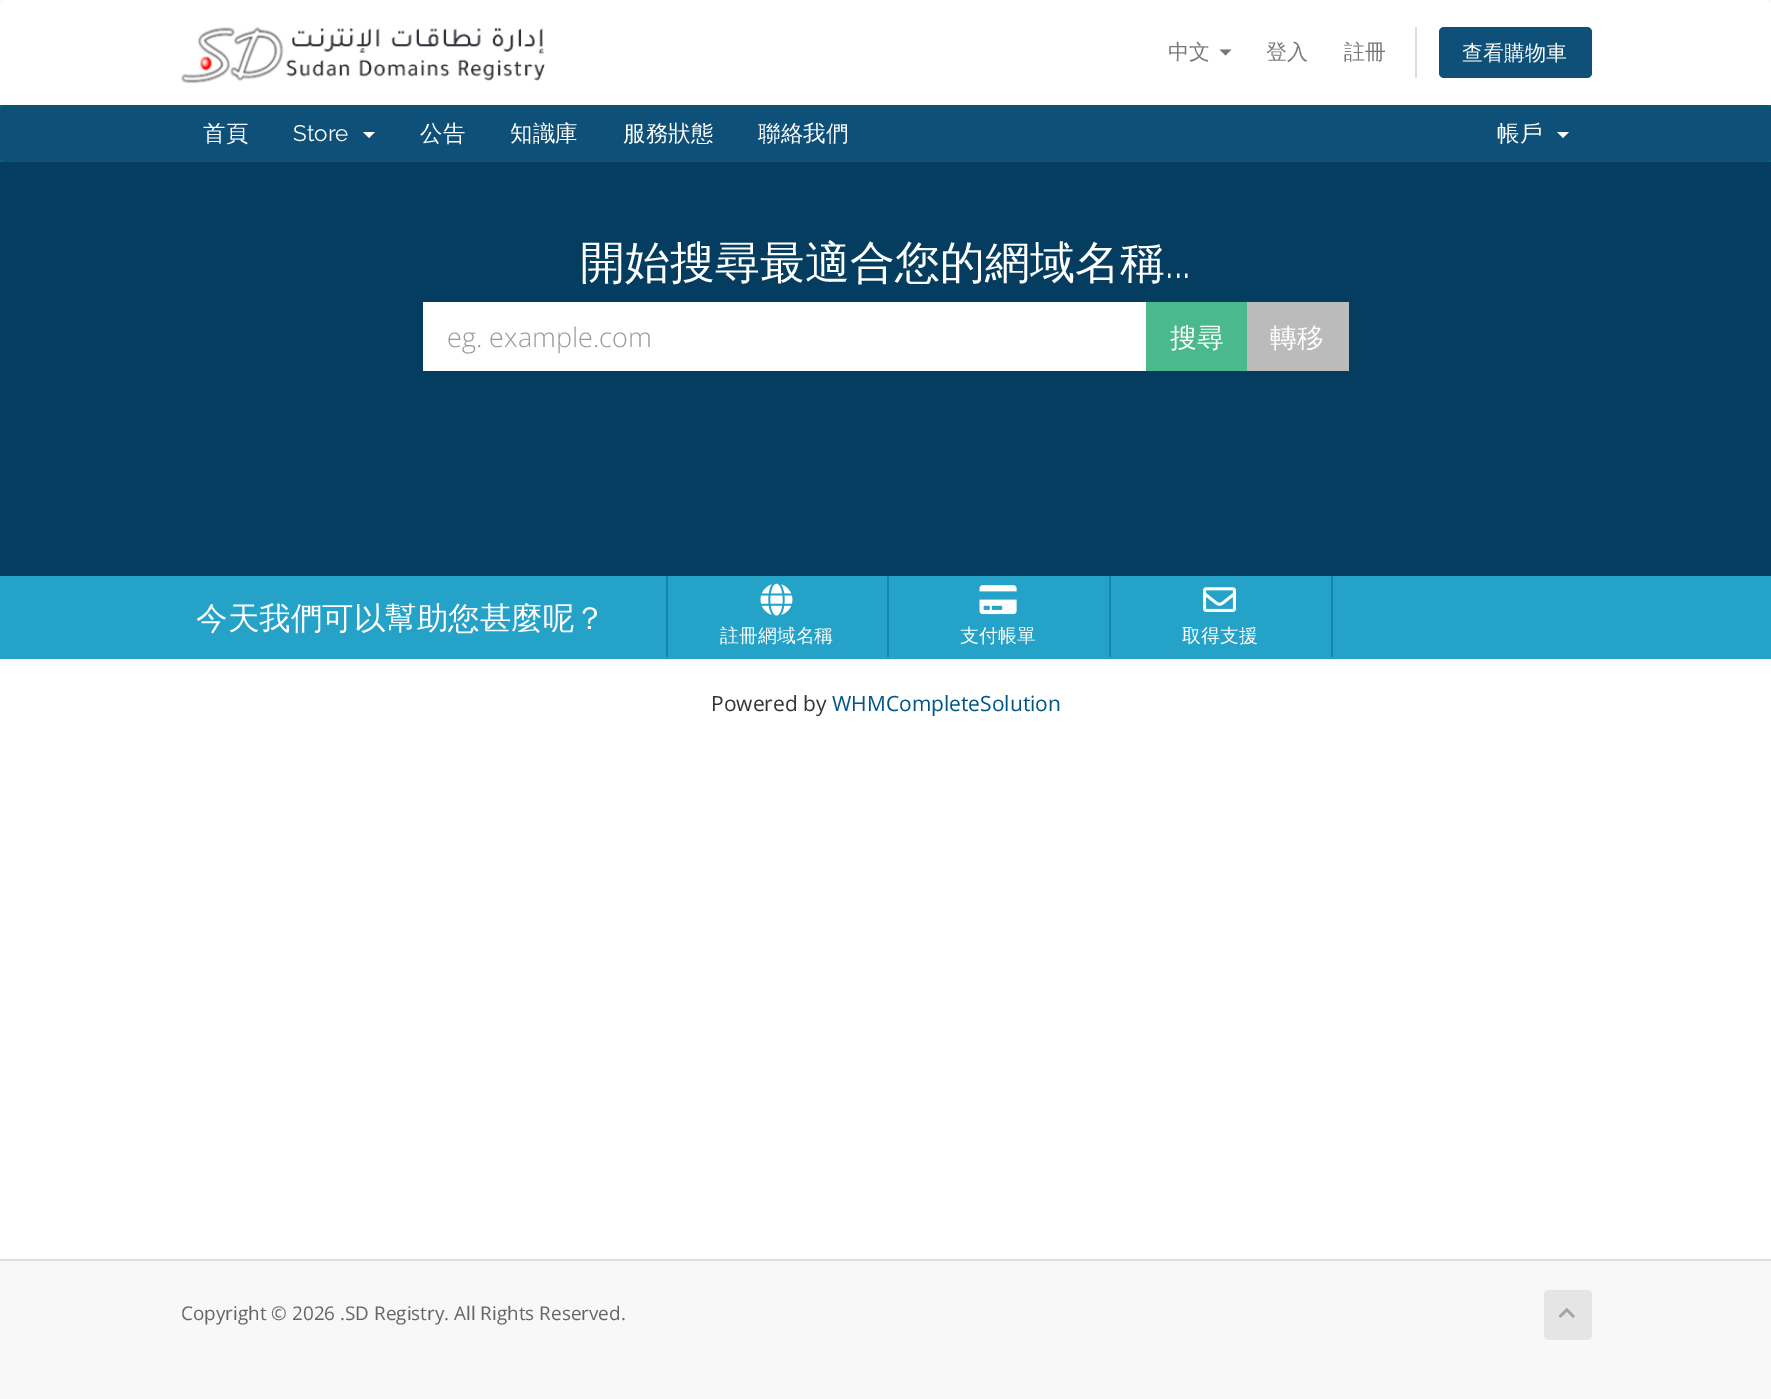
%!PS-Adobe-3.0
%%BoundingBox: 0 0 1771 1399
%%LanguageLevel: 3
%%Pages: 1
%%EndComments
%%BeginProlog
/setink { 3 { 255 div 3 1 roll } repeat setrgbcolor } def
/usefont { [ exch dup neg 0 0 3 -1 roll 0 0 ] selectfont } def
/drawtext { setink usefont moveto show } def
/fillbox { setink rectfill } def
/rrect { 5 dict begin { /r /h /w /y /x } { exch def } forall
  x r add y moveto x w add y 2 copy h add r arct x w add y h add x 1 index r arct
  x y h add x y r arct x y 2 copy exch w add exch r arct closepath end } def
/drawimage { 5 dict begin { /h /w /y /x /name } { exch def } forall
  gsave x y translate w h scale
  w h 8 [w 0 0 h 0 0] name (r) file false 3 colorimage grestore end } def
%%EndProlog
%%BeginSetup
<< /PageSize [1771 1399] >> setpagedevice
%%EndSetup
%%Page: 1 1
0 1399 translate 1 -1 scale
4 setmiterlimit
0 0 1771 1399 248 248 248 fillbox
255 255 255 setink
8 0 moveto 1764 0 lineto 1768.5 0 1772 3.5 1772 8 curveto 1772 105 lineto 0 105 lineto 0 8 lineto 0 3.5 3.5 0 8 0 curveto closepath fill
(assets/img1.rgb) 181 27 364 57 drawimage
(中文) 1168 59 /WenQuanYiZenHei-Medium 21 119 119 119 drawtext
1219.5 49.5 moveto 1231.5 49.5 lineto 1225.5 55.5 lineto closepath fill
(登入) 1266 59 /WenQuanYiZenHei-Medium 21 119 119 119 drawtext
(註冊) 1344 59 /WenQuanYiZenHei-Medium 21 119 119 119 drawtext
1415 27 2 51 221 221 221 fillbox
14 80 119 setink
1439 27 153 51 5 rrect fill
(查看購物車) 1462 60 /WenQuanYiZenHei-Medium 21 255 255 255 drawtext
0 105 1771 57 0 102 135 fillbox
14 80 119 setink
0 105 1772 57 6 rrect fill
(首頁) 203 141 /WenQuanYiZenHei-Medium 22.5 255 255 255 drawtext
(Store) 293 141 /Raleway-Regular 22.5 255 255 255 drawtext
363 132 moveto 375 132 lineto 369 138 lineto closepath fill
(公告) 420 141 /WenQuanYiZenHei-Medium 22.5 255 255 255 drawtext
(知識庫) 510 141 /WenQuanYiZenHei-Medium 22.5 255 255 255 drawtext
(服務狀態) 623 141 /WenQuanYiZenHei-Medium 22.5 255 255 255 drawtext
(聯絡我們) 758 141 /WenQuanYiZenHei-Medium 22.5 255 255 255 drawtext
(帳戶) 1497 141 /WenQuanYiZenHei-Medium 22.5 255 255 255 drawtext
1557 132 moveto 1569 132 lineto 1563 138 lineto closepath fill
0 162 1771 414 4 61 95 fillbox
(開始搜尋最適合您的網域名稱) 580 278 /WenQuanYiZenHei-Medium 45 255 255 255 drawtext
(...) 1165 278 /Raleway-Regular 45 255 255 255 drawtext
423 302 723 69 255 255 255 fillbox
(eg. example.com) 447 347 /OpenSans-Light 27 153 153 153 drawtext
1146 302 101 69 74 185 139 fillbox
(搜尋) 1170 347 /WenQuanYiZenHei-Medium 27 255 255 255 drawtext
1247 302 102 69 187 187 187 fillbox
(轉移) 1270 347 /WenQuanYiZenHei-Medium 27 255 255 255 drawtext
0 576 1771 83 37 162 199 fillbox
(今天我們可以幫助您甚麼呢？) 196 629 /WenQuanYiZenHei-Medium 31.5 255 255 255 drawtext
887 576 2 81 14 136 176 fillbox
666 576 2 81 14 136 176 fillbox
(assets/img2.rgb) 760 583 33 33 drawimage
(註冊網域名稱) 720 642 /WenQuanYiZenHei-Medium 18.9 255 255 255 drawtext
1109 576 2 81 14 136 176 fillbox
(assets/img3.rgb) 979 585 38 30 drawimage
(支付帳單) 960 642 /WenQuanYiZenHei-Medium 18.9 255 255 255 drawtext
1331 576 2 81 14 136 176 fillbox
(assets/img4.rgb) 1203 587 33 25 drawimage
(取得支援) 1182 642 /WenQuanYiZenHei-Medium 18.9 255 255 255 drawtext
0 659 1771 600 255 255 255 fillbox
(Powered by) 711 711 /OpenSans-Regular 21 51 51 51 drawtext
(WHMCompleteSolution) 832 711 /OpenSans-Regular 21 0 85 136 drawtext
0 1259 1771 2 221 221 221 fillbox
(Copyright © 2026 .SD Registry. All Rights Reserved.) 181 1320 /OpenSans-Regular 18.9 102 102 102 drawtext
229 229 229 setink
1544 1290 48 50 5 rrect fill
(assets/img5.rgb) 1558 1308 17 10 drawimage
showpage
%%EOF
